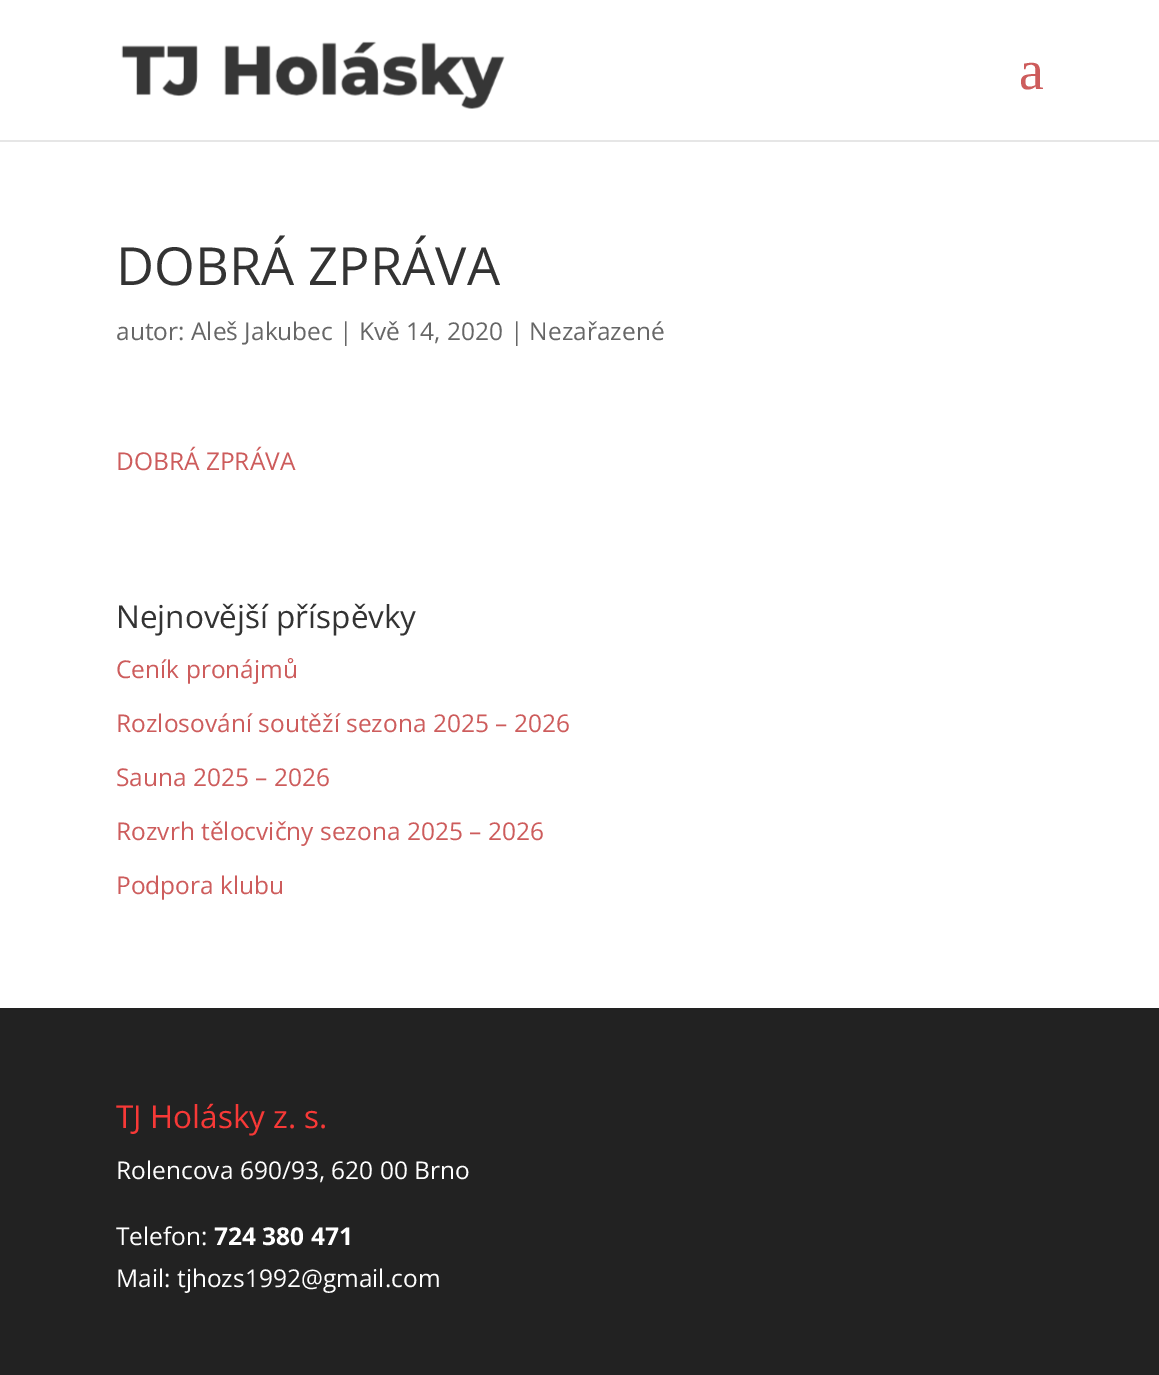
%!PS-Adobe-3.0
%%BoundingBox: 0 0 1159 1375
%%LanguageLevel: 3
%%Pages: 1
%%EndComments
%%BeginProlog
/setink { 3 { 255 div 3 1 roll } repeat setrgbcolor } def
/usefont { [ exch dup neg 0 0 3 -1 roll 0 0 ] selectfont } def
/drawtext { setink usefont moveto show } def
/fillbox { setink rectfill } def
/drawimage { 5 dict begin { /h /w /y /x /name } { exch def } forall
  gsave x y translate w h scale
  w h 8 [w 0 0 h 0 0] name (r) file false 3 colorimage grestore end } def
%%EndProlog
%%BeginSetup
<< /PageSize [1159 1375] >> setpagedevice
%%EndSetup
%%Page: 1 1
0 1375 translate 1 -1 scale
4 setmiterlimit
0 0 1159 1375 255 255 255 fillbox
0 140 1159 2 230 230 230 fillbox
(assets/img1.rgb) 121 41 384 68 drawimage
(a) 1019 89 /LiberationSerif-Regular 56 205 92 92 drawtext
(DOBRÁ ZPRÁVA) 116 285 /OpenSans-Regular 52.5 51 51 51 drawtext
(autor: Aleš Jakubec | Kvě 14, 2020 | Nezařazené) 116 340 /OpenSans-Regular 24.5 102 102 102 drawtext
(DOBRÁ ZPRÁVA) 116 470 /OpenSans-Regular 24.5 205 92 92 drawtext
(Nejnovější příspěvky) 116 628 /OpenSans-Regular 31.5 51 51 51 drawtext
(Ceník pronájmů) 116 678 /OpenSans-Regular 24.5 205 92 92 drawtext
(Rozlosování soutěží sezona 2025 – 2026) 116 732 /OpenSans-Regular 24.5 205 92 92 drawtext
(Sauna 2025 – 2026) 116 786 /OpenSans-Regular 24.5 205 92 92 drawtext
(Rozvrh tělocvičny sezona 2025 – 2026) 116 840 /OpenSans-Regular 24.5 205 92 92 drawtext
(Podpora klubu) 116 894 /OpenSans-Regular 24.5 205 92 92 drawtext
0 1008 1159 367 34 34 34 fillbox
(TJ Holásky z. s.) 116 1128 /OpenSans-Regular 31.5 247 57 55 drawtext
(Rolencova 690/93, 620 00 Brno) 116 1179 /OpenSans-Regular 24.5 255 255 255 drawtext
(Telefon:) 116 1245 /OpenSans-Regular 24.5 255 255 255 drawtext
(724 380 471) 214 1245 /OpenSans-Bold 24.5 255 255 255 drawtext
(Mail: tjhozs1992@gmail.com) 116 1287 /OpenSans-Regular 24.5 255 255 255 drawtext
showpage
%%EOF
